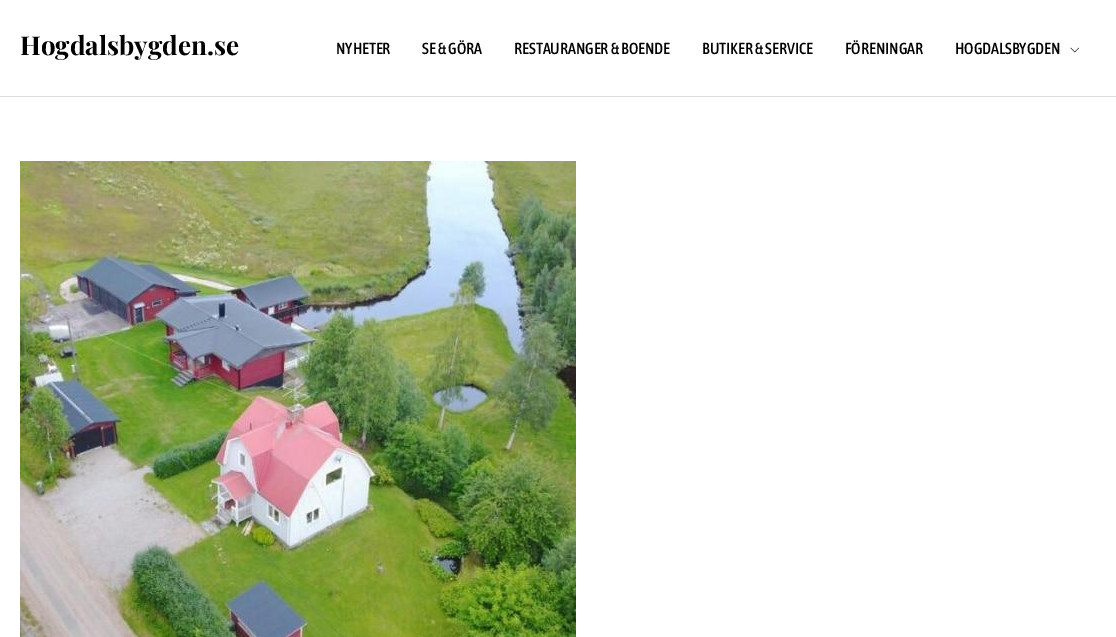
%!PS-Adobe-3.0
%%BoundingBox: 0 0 1116 637
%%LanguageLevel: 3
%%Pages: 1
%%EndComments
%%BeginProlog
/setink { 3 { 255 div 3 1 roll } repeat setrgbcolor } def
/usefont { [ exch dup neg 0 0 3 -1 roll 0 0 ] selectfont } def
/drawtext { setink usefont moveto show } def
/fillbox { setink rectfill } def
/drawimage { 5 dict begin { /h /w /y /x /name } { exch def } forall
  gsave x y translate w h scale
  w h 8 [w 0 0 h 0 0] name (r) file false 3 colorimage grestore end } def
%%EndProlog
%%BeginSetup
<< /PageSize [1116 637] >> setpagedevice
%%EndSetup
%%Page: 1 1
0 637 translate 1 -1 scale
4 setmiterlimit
0 0 1116 637 255 255 255 fillbox
0 96 1116 1 221 221 221 fillbox
(Hogdalsbygden.se) 20 55 /PlayfairDisplay-Bold 26 0 0 0 drawtext
(NYHETER) 336 54 /AsapCondensed-Medium 16 0 0 0 drawtext
(SE & GÖRA) 422 54 /AsapCondensed-Medium 16 0 0 0 drawtext
(RESTAURANGER & BOENDE) 514 54 /AsapCondensed-Medium 16 0 0 0 drawtext
(BUTIKER & SERVICE) 702 54 /AsapCondensed-Medium 16 0 0 0 drawtext
(FÖRENINGAR) 845 54 /AsapCondensed-Medium 16 0 0 0 drawtext
(HOGDALSBYGDEN) 955 54 /AsapCondensed-Medium 16 0 0 0 drawtext
(assets/img1.rgb) 1070 47 9 6 drawimage
(assets/img2.rgb) 20 161 556 476 drawimage
showpage
%%EOF
